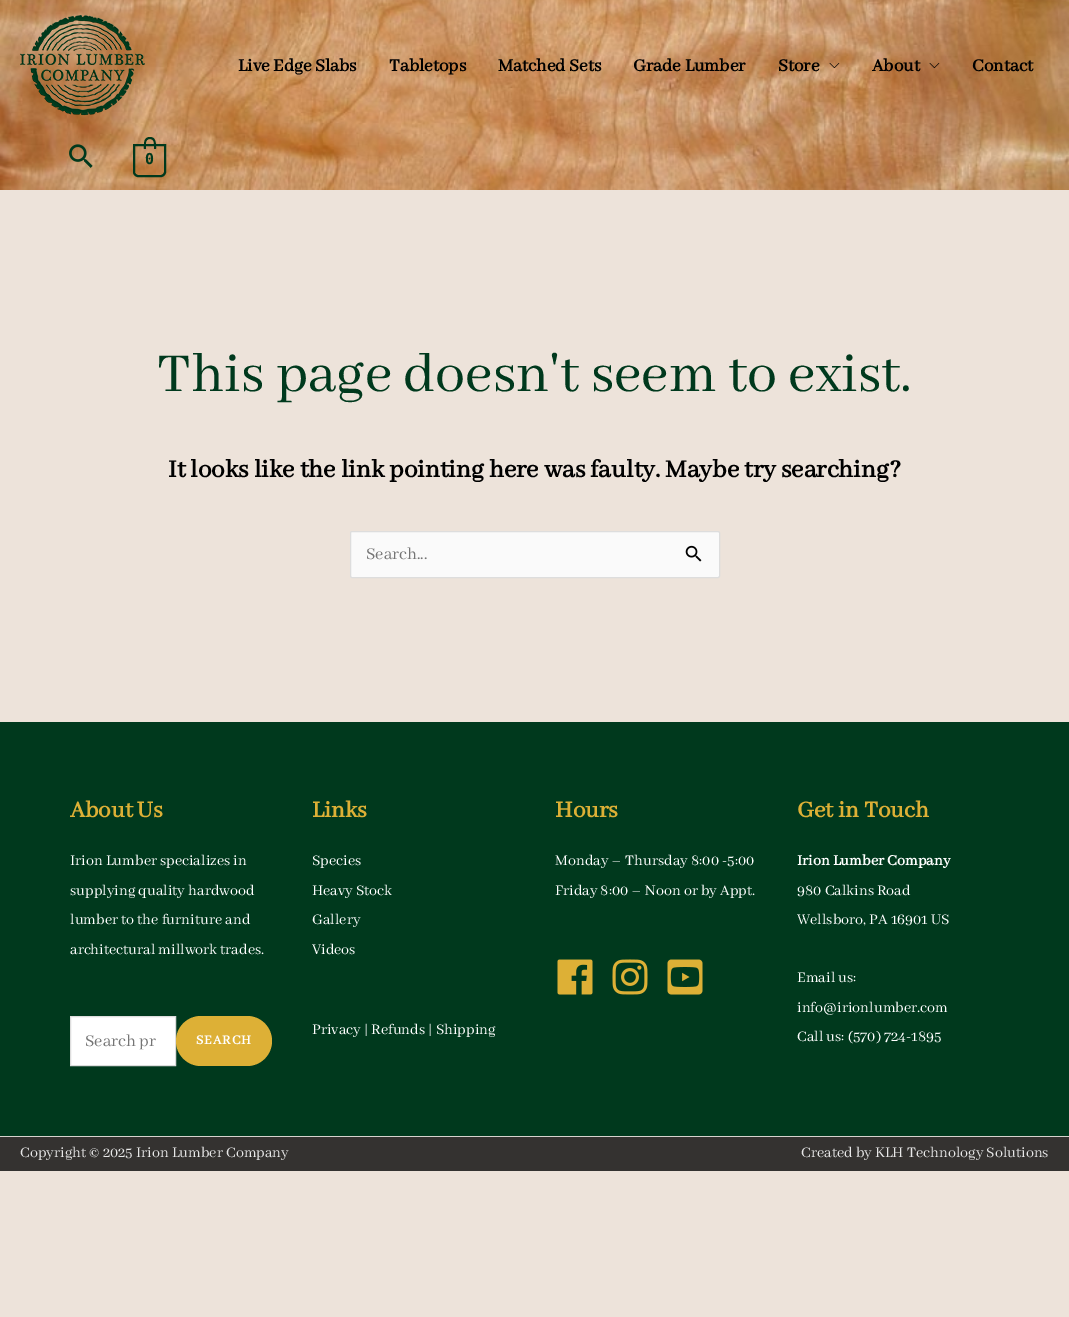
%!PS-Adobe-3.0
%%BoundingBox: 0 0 1069 1317
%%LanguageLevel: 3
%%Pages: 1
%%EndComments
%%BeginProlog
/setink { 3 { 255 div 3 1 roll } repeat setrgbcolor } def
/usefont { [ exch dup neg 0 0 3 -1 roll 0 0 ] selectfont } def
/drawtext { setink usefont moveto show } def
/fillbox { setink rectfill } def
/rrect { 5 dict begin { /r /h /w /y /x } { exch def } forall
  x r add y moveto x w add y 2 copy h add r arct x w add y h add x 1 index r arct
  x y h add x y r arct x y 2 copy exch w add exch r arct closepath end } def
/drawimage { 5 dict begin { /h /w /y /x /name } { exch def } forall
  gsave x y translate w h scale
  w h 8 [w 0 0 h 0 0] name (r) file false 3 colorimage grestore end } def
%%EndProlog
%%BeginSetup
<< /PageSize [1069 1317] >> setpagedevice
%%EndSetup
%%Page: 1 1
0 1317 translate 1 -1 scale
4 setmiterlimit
0 0 1069 1317 237 227 218 fillbox
(assets/img1.rgb) 0 0 1069 190 drawimage
(assets/img2.rgb) 20 15 125 101 drawimage
(Live Edge Slabs) 238 71 /AbhayaLibre-Bold 19 0 0 0 drawtext
(Tabletops) 389 71 /AbhayaLibre-Bold 19 0 0 0 drawtext
(Matched Sets) 498 71 /AbhayaLibre-Bold 19 0 0 0 drawtext
(Grade Lumber) 633 71 /AbhayaLibre-Bold 19 0 0 0 drawtext
(Store) 778 71 /AbhayaLibre-Bold 19 0 0 0 drawtext
(assets/img3.rgb) 829 62 11 7 drawimage
(About) 872 71 /AbhayaLibre-Bold 19 0 0 0 drawtext
(assets/img4.rgb) 929 62 11 7 drawimage
(Contact) 972 71 /AbhayaLibre-Bold 19 0 0 0 drawtext
(assets/img5.rgb) 69 144 24 24 drawimage
0 57 29 setink
2 setlinewidth
134 145 moveto 165 145 lineto 165 172 lineto 165 174 163 176 161 176 curveto 138 176 lineto 136 176 134 174 134 172 curveto closepath stroke
150 137 moveto 156.5 137 156 144.5 156 149 curveto 144 149 lineto 144 144.5 143 137 150 137 curveto closepath 150 139 moveto 155 139 154 145.5 154 149 curveto 146 149 lineto 146 145.5 144.5 139 150 139 curveto closepath eofill
(0) 145 164 /DejaVuSansMono-Bold 15 0 57 29 drawtext
(This page doesn't seem to exist.) 157 391 /AbhayaLibre-Regular 60 0 57 29 drawtext
(It looks like the link pointing here was faulty. Maybe try searching?) 168 477 /AbhayaLibre-Bold 27 0 0 0 drawtext
250 250 250 setink
350.5 531.5 369 46 1.5 rrect gsave fill grestore
221 221 221 setink
1 setlinewidth
stroke
(Search...) 366 559 /AbhayaLibre-Regular 18 117 117 117 drawtext
(assets/img6.rgb) 685 545 17 17 drawimage
0 722 1069 414 0 57 29 fillbox
(About Us) 70 817 /AbhayaLibre-Bold 25 221 176 54 drawtext
(Irion Lumber specializes in) 70 865 /AbhayaLibre-Regular 16 255 255 255 drawtext
(supplying quality hardwood) 70 895 /AbhayaLibre-Regular 16 255 255 255 drawtext
(lumber to the furniture and) 70 924 /AbhayaLibre-Regular 16 255 255 255 drawtext
(architectural millwork trades.) 70 954 /AbhayaLibre-Regular 16 255 255 255 drawtext
70.5 1016.5 moveto 175.5 1016.5 lineto 175.5 1065.5 lineto 70.5 1065.5 lineto closepath gsave fill grestore
221 221 221 setink
stroke
(Search pr) 85 1046 /AbhayaLibre-Regular 18 117 117 117 drawtext
221 176 54 setink
176 1016 96 50 25 rrect fill
/AbhayaLibre-Bold 14 usefont
255 255 255 setink
196 1044 moveto 1 0 (SEARCH) ashow
(Links) 312 817 /AbhayaLibre-Bold 25 221 176 54 drawtext
(Species) 312 865 /AbhayaLibre-Regular 16 255 255 255 drawtext
(Heavy Stock) 312 895 /AbhayaLibre-Regular 16 255 255 255 drawtext
(Gallery) 312 924 /AbhayaLibre-Regular 16 255 255 255 drawtext
(Videos) 312 954 /AbhayaLibre-Regular 16 255 255 255 drawtext
(Privacy | Refunds | Shipping) 312 1034 /AbhayaLibre-Regular 16 255 255 255 drawtext
(Hours) 555 817 /AbhayaLibre-Bold 25 221 176 54 drawtext
(Monday – Thursday 8:00 -5:00) 555 865 /AbhayaLibre-Regular 16 255 255 255 drawtext
(Friday 8:00 – Noon or by Appt.) 555 895 /AbhayaLibre-Regular 16 255 255 255 drawtext
(assets/img7.rgb) 557 959 36 36 drawimage
(assets/img8.rgb) 612 959 36 36 drawimage
(assets/img9.rgb) 667 959 36 36 drawimage
(Get in Touch) 797 817 /AbhayaLibre-Bold 25 221 176 54 drawtext
(Irion Lumber Company) 797 865 /AbhayaLibre-Bold 16 255 255 255 drawtext
(980 Calkins Road) 797 895 /AbhayaLibre-Regular 16 255 255 255 drawtext
(Wellsboro, PA 16901 US) 797 924 /AbhayaLibre-Regular 16 255 255 255 drawtext
(Email us:) 797 982 /AbhayaLibre-Regular 16 255 255 255 drawtext
(info@irionlumber.com) 797 1012 /AbhayaLibre-Regular 16 255 255 255 drawtext
(Call us: \(570\) 724-1895) 797 1041 /AbhayaLibre-Regular 16 255 255 255 drawtext
0 1136 1069 1 215 211 206 fillbox
0 1137 1069 34 52 50 48 fillbox
(Copyright © 2025 Irion Lumber Company) 20 1157 /AbhayaLibre-Regular 16 232 232 232 drawtext
(Created by KLH Technology Solutions) 801 1157 /AbhayaLibre-Regular 16 232 232 232 drawtext
showpage
%%EOF
